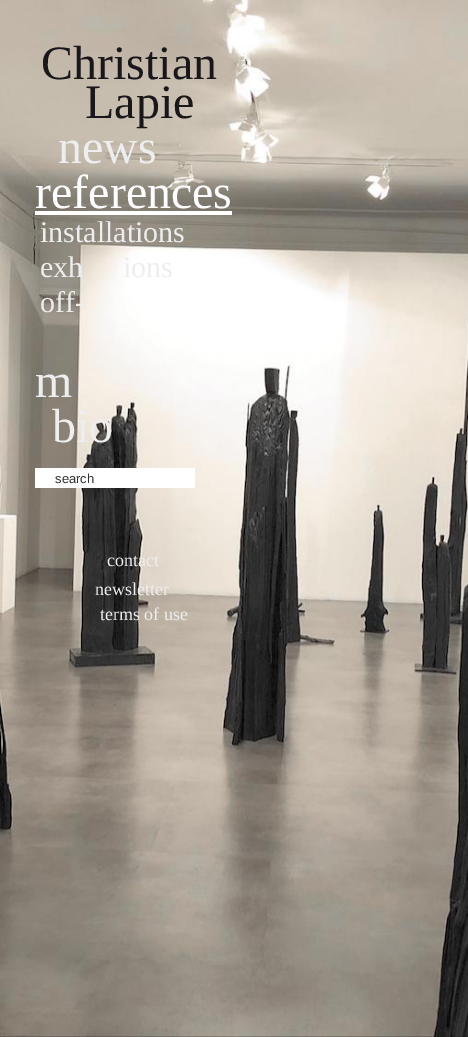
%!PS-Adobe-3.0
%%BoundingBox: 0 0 468 1037
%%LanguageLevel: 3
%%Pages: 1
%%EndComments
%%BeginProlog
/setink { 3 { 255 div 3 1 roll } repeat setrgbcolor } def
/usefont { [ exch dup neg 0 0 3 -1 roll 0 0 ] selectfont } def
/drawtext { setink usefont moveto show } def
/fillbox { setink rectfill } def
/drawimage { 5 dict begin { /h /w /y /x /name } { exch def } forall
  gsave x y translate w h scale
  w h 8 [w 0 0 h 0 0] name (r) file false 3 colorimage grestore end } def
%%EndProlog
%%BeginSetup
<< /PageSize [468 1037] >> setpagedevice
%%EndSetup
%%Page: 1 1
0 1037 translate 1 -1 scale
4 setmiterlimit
0 0 468 1037 255 255 255 fillbox
(assets/img1.rgb) 0 0 468 1037 drawimage
(Christian) 41 79 /LiberationSerif-Regular 48 26 23 27 drawtext
(Lapie) 85 118 /LiberationSerif-Regular 48 26 23 27 drawtext
(news) 58 163 /LiberationSerif-Regular 48 238 238 238 drawtext
(references) 35 208 /LiberationSerif-Regular 48 255 255 255 drawtext
35 211 197 4 255 255 255 fillbox
(installations) 40 242 /LiberationSerif-Regular 30 238 238 238 drawtext
(exh) 40 277 /LiberationSerif-Regular 30 238 238 238 drawtext
(ions) 123 277 /LiberationSerif-Regular 30 238 238 238 drawtext
(off-) 40 312 /LiberationSerif-Regular 30 238 238 238 drawtext
(m) 35 397 /LiberationSerif-Regular 48 238 238 238 drawtext
(bio) 52 442 /LiberationSerif-Regular 48 238 238 238 drawtext
35 468 160 20 255 255 255 fillbox
(search) 55 483 /LiberationSans-Regular 13 51 51 51 drawtext
(contact) 107 566 /LiberationSerif-Regular 18 238 238 238 drawtext
(newsletter) 95 595 /LiberationSerif-Regular 18 238 238 238 drawtext
(terms of use) 100 620 /LiberationSerif-Regular 18 238 238 238 drawtext
showpage
%%EOF
